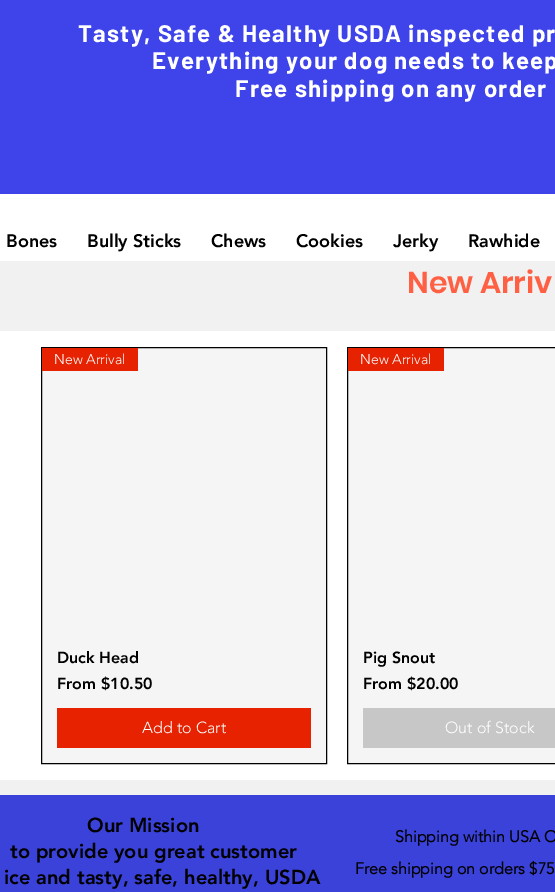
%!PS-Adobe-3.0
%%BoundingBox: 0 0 555 892
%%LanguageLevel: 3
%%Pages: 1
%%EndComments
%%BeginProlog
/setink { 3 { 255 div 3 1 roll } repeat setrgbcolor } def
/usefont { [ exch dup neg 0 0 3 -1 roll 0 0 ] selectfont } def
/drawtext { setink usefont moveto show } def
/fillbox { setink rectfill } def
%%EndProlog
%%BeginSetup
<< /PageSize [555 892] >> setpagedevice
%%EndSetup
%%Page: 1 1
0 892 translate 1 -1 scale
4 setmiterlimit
0 0 555 892 241 241 241 fillbox
0 0 555 194 62 67 234 fillbox
/Barlow-Bold 24 usefont
255 255 255 setink
78 42 moveto 1.2 0 (Tasty, Safe & Healthy USDA inspected pr) ashow
152 69 moveto 1.2 0 (Everything your dog needs to keep) ashow
235 97 moveto 1.2 0 (Free shipping on any order) ashow
0 194 555 67 255 255 255 fillbox
(Bones) 6 247 /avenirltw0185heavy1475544-Black 18 0 0 0 drawtext
(Bully Sticks) 87 247 /avenirltw0185heavy1475544-Black 18 0 0 0 drawtext
(Chews) 211 247 /avenirltw0185heavy1475544-Black 18 0 0 0 drawtext
(Cookies) 296 247 /avenirltw0185heavy1475544-Black 18 0 0 0 drawtext
(Jerky) 393 247 /avenirltw0185heavy1475544-Black 18 0 0 0 drawtext
(Rawhide) 468 247 /avenirltw0185heavy1475544-Black 18 0 0 0 drawtext
(New Arriv) 407 293 /Poppins-SemiBold 30 255 95 66 drawtext
0 331 555 449 255 255 255 fillbox
245 245 245 setink
41.5 347.5 moveto 326.5 347.5 lineto 326.5 763.5 lineto 41.5 763.5 lineto closepath gsave fill grestore
0 0 0 setink
stroke
42 348 96 23 230 34 0 fillbox
(New Arrival) 54 364 /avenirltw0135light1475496-Light 14 255 255 255 drawtext
(Duck Head) 57 663 /avenirltw0185heavy1475544-Black 16 0 0 0 drawtext
(From $10.50) 57 689 /avenirltw0185heavy1475544-Black 16 0 0 0 drawtext
57 708 254 40 230 34 0 fillbox
(Add to Cart) 142 733 /avenirltw0135light1475496-Light 16 255 255 255 drawtext
245 245 245 setink
347.5 347.5 moveto 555.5 347.5 lineto 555.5 763.5 lineto 347.5 763.5 lineto closepath gsave fill grestore
0 0 0 setink
stroke
348 348 96 23 230 34 0 fillbox
(New Arrival) 360 364 /avenirltw0135light1475496-Light 14 255 255 255 drawtext
(Pig Snout) 363 663 /avenirltw0185heavy1475544-Black 16 0 0 0 drawtext
(From $20.00) 363 689 /avenirltw0185heavy1475544-Black 16 0 0 0 drawtext
363 708 192 40 199 199 199 fillbox
(Out of Stock) 445 733 /avenirltw0135light1475496-Light 16 255 255 255 drawtext
0 795 555 97 58 66 218 fillbox
(Our Mission) 87 832 /avenirltw0185heavy1475544-Black 20 0 0 0 drawtext
(to provide you great customer) 10 858 /avenirltw0185heavy1475544-Black 20 0 0 0 drawtext
(ice and tasty, safe, healthy, USDA) 4 884 /avenirltw0185heavy1475544-Black 20 0 0 0 drawtext
(Shipping within USA O) 395 842 /avenirltw0135light1475496-Bold 16 0 0 0 drawtext
(Free shipping on orders $75) 355 874 /avenirltw0135light1475496-Bold 16 0 0 0 drawtext
showpage
%%EOF
